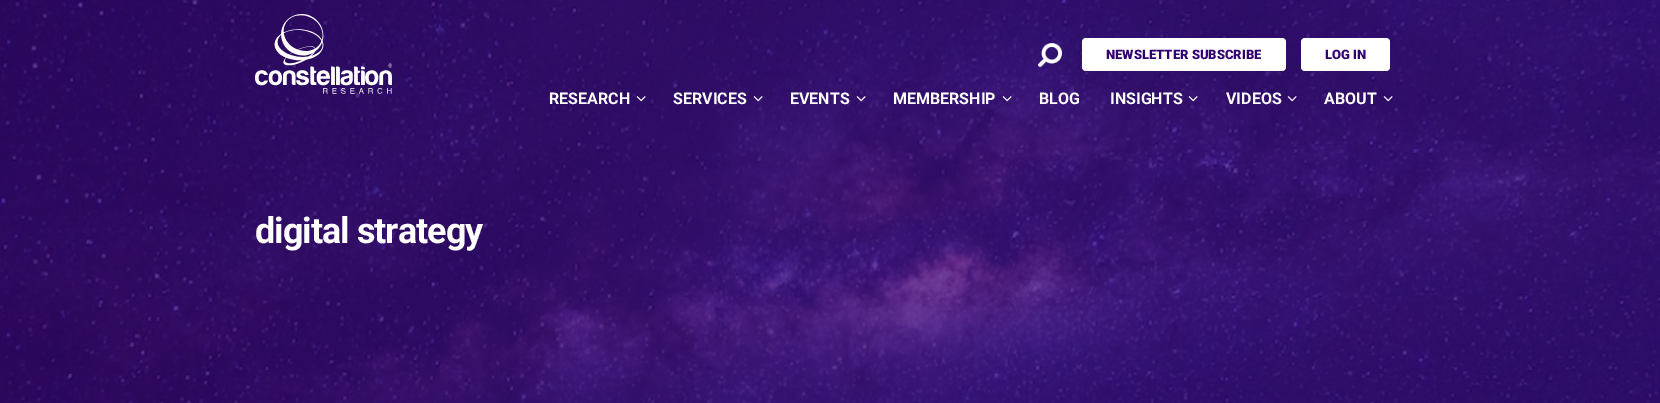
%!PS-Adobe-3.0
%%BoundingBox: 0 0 1660 403
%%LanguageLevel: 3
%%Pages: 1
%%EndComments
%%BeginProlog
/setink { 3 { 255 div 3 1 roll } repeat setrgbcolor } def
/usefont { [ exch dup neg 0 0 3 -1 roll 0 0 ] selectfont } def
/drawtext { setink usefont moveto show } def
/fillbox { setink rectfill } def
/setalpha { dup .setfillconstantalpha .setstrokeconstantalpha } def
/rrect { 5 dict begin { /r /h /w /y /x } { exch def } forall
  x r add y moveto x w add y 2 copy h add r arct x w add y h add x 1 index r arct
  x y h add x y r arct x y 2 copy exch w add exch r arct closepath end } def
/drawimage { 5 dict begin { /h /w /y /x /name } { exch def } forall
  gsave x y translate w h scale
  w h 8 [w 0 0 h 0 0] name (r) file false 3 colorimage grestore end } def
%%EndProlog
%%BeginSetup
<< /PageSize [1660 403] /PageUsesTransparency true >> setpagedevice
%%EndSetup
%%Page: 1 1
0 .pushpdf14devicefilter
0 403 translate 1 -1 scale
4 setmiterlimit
0 0 1660 403 255 255 255 fillbox
(assets/img1.rgb) 0 0 1660 403 drawimage
0.7 setalpha
0 0 1660 153 51 0 114 fillbox
1 setalpha
(assets/img2.rgb) 255 14 137 80 drawimage
(assets/img3.rgb) 1038 43 24 24 drawimage
255 255 255 setink
1082 38 204 33 4 rrect fill
(NEWSLETTER SUBSCRIBE) 1106 59 /Roboto-Black 13 51 0 114 drawtext
255 255 255 setink
1301 38 89 33 4 rrect fill
(LOG IN) 1325 59 /Roboto-Black 13 51 0 114 drawtext
(RESEARCH) 549 104 /Roboto-Bold 16 255 255 255 drawtext
(assets/img4.rgb) 636 96 10 6 drawimage
(SERVICES) 673 104 /Roboto-Bold 16 255 255 255 drawtext
(assets/img5.rgb) 753 96 10 6 drawimage
(EVENTS) 790 104 /Roboto-Bold 16 255 255 255 drawtext
(assets/img6.rgb) 856 96 10 6 drawimage
(MEMBERSHIP) 893 104 /Roboto-Bold 16 255 255 255 drawtext
(assets/img7.rgb) 1002 96 10 6 drawimage
(BLOG) 1039 104 /Roboto-Bold 16 255 255 255 drawtext
(INSIGHTS) 1110 104 /Roboto-Bold 16 255 255 255 drawtext
(assets/img8.rgb) 1188 96 10 6 drawimage
(VIDEOS) 1226 104 /Roboto-Bold 16 255 255 255 drawtext
(assets/img9.rgb) 1287 96 10 6 drawimage
(ABOUT) 1324 104 /Roboto-Bold 16 255 255 255 drawtext
(assets/img10.rgb) 1383 96 10 6 drawimage
0.7 setalpha
0 153 1660 250 51 0 114 fillbox
/Roboto-Bold 36 usefont
1 setalpha
255 255 255 setink
255 243 moveto -1 0 (digital strategy) ashow
.poppdf14devicefilter showpage
%%EOF
